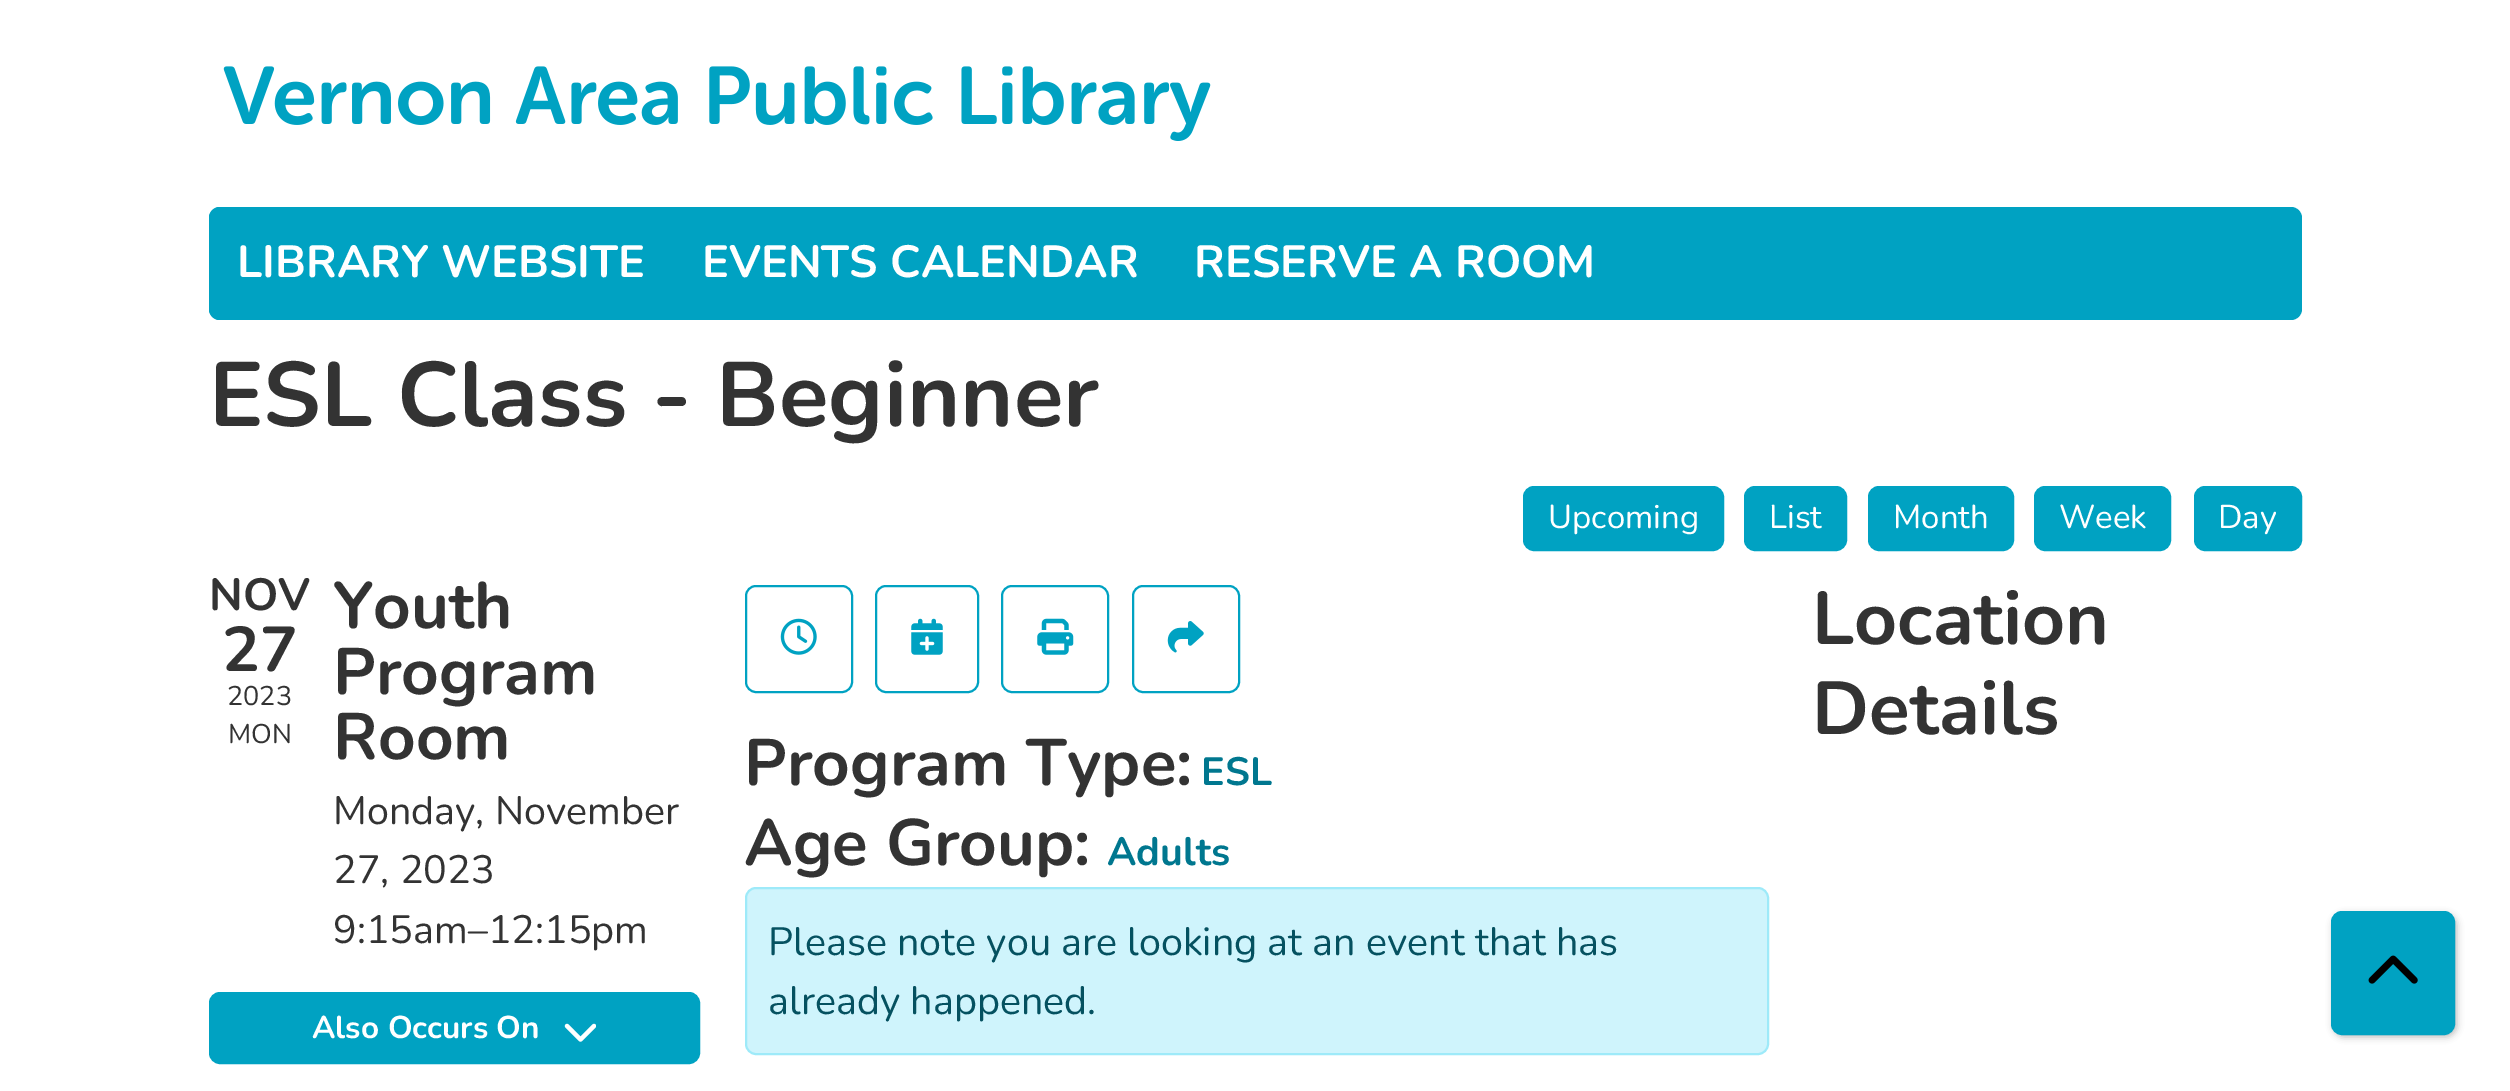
%!PS-Adobe-3.0
%%BoundingBox: 0 0 2510 1091
%%LanguageLevel: 3
%%Pages: 1
%%EndComments
%%BeginProlog
/setink { 3 { 255 div 3 1 roll } repeat setrgbcolor } def
/usefont { [ exch dup neg 0 0 3 -1 roll 0 0 ] selectfont } def
/drawtext { setink usefont moveto show } def
/fillbox { setink rectfill } def
/setalpha { dup .setfillconstantalpha .setstrokeconstantalpha } def
/rrect { 5 dict begin { /r /h /w /y /x } { exch def } forall
  x r add y moveto x w add y 2 copy h add r arct x w add y h add x 1 index r arct
  x y h add x y r arct x y 2 copy exch w add exch r arct closepath end } def
/softshadow { 12 dict begin { /a /b /q /h /w /y /x } { exch def } forall gsave /was 0 def
  9 -2 -9 { dup b mul 4 div /e exch def 1 sub .425 mul 2.718 exch exp 1 add a .99 .min exch div /now exch def
    1 1 now sub 1 was sub div sub setalpha /was now def
    w h .min e 2 mul add 0 gt { x e sub y e sub w e 2 mul add h e 2 mul add
      q e add b .6 mul add w h .min 2 div e add .min 0 .max rrect fill } if } for grestore end } def
/drawimage { 5 dict begin { /h /w /y /x /name } { exch def } forall
  gsave x y translate w h scale
  w h 8 [w 0 0 h 0 0] name (r) file false 3 colorimage grestore end } def
%%EndProlog
%%BeginSetup
<< /PageSize [2510 1091] /PageUsesTransparency true >> setpagedevice
%%EndSetup
%%Page: 1 1
0 .pushpdf14devicefilter
0 1091 translate 1 -1 scale
4 setmiterlimit
0 0 2510 1091 255 255 255 fillbox
(assets/img1.rgb) 223 66 988 75 drawimage
0 162 194 setink
209 207 2093 113 11 rrect fill
220 207 moveto 673 207 lineto 673 320 lineto 220 320 lineto 214 320 209 315 209 309 curveto 209 218 lineto 209 212 214 207 220 207 curveto closepath fill
(LIBRARY WEBSITE) 237 277 /Nunito-Bold 45 255 255 255 drawtext
(EVENTS CALENDAR) 702 277 /Nunito-Bold 45 255 255 255 drawtext
(RESERVE A ROOM) 1194 277 /Nunito-Bold 45 255 255 255 drawtext
(ESL Class - Beginner) 209 426 /Nunito-Bold 91.25 51 51 51 drawtext
0 162 194 setink
1524 487 199 63 10 rrect gsave fill grestore
2 setlinewidth
stroke
(Upcoming) 1548 528 /Nunito-Regular 33 255 255 255 drawtext
0 162 194 setink
1745 487 101 63 10 rrect gsave fill grestore
stroke
(List) 1769 528 /Nunito-Regular 33 255 255 255 drawtext
0 162 194 setink
1869 487 144 63 10 rrect gsave fill grestore
stroke
(Month) 1893 528 /Nunito-Regular 33 255 255 255 drawtext
0 162 194 setink
2035 487 135 63 10 rrect gsave fill grestore
stroke
(Week) 2059 528 /Nunito-Regular 33 255 255 255 drawtext
0 162 194 setink
2195 487 106 63 10 rrect gsave fill grestore
stroke
(Day) 2218 528 /Nunito-Regular 33 255 255 255 drawtext
(NOV) 209 610 /Nunito-Bold 45 51 51 51 drawtext
(27) 222 671 /Nunito-Bold 63 51 51 51 drawtext
(2023) 227 705 /Nunito-Regular 27 51 51 51 drawtext
(MON) 228 743 /Nunito-Regular 27 51 51 51 drawtext
(Youth) 333 628 /Nunito-Bold 65.5 51 51 51 drawtext
(Program) 333 694 /Nunito-Bold 65.5 51 51 51 drawtext
(Room) 333 759 /Nunito-Bold 65.5 51 51 51 drawtext
(Monday, November) 333 824 /Nunito-Regular 39.5 51 51 51 drawtext
(27, 2023) 333 883 /Nunito-Regular 39.5 51 51 51 drawtext
(9:15am–12:15pm) 333 943 /Nunito-Regular 39.5 51 51 51 drawtext
0 162 194 setink
210 993 489 70 10 rrect gsave fill grestore
stroke
(Also Occurs On) 312 1038 /Nunito-Bold 31.5 255 255 255 drawtext
(assets/img2.rgb) 564 1023 32 19 drawimage
(Location) 1812 644 /Nunito-Bold 75 51 51 51 drawtext
(Details) 1812 734 /Nunito-Bold 75 51 51 51 drawtext
0 162 194 setink
746 586 106 106 10 rrect stroke
(assets/img3.rgb) 780 618 37 37 drawimage
876 586 102 106 10 rrect stroke
(assets/img4.rgb) 911 618 32 37 drawimage
1002 586 106 106 10 rrect stroke
(assets/img5.rgb) 1037 618 37 37 drawimage
1133 586 106 106 10 rrect stroke
(assets/img6.rgb) 1167 621 37 32 drawimage
(Program Type:) 744 785 /Nunito-Bold 65.5 51 51 51 drawtext
(ESL) 1201 785 /Nunito-Bold 39.5 0 119 143 drawtext
(Age Group:) 744 865 /Nunito-Bold 65.5 51 51 51 drawtext
(Adults) 1107 865 /Nunito-Bold 39.5 0 119 143 drawtext
207 244 252 setink
746 888 1022 166 10 rrect gsave fill grestore
158 234 249 setink
stroke
(Please note you are looking at an event that has) 768 955 /Nunito-Regular 39.5 5 81 96 drawtext
(already happened.) 768 1014 /Nunito-Regular 39.5 5 81 96 drawtext
0 0 0 setink
2333 914 124 123 11 3.5 0.25 softshadow
0 162 194 setink
2332 912 122 122 10 rrect gsave fill grestore
stroke
(assets/img7.rgb) 2368 955 50 29 drawimage
.poppdf14devicefilter showpage
%%EOF
